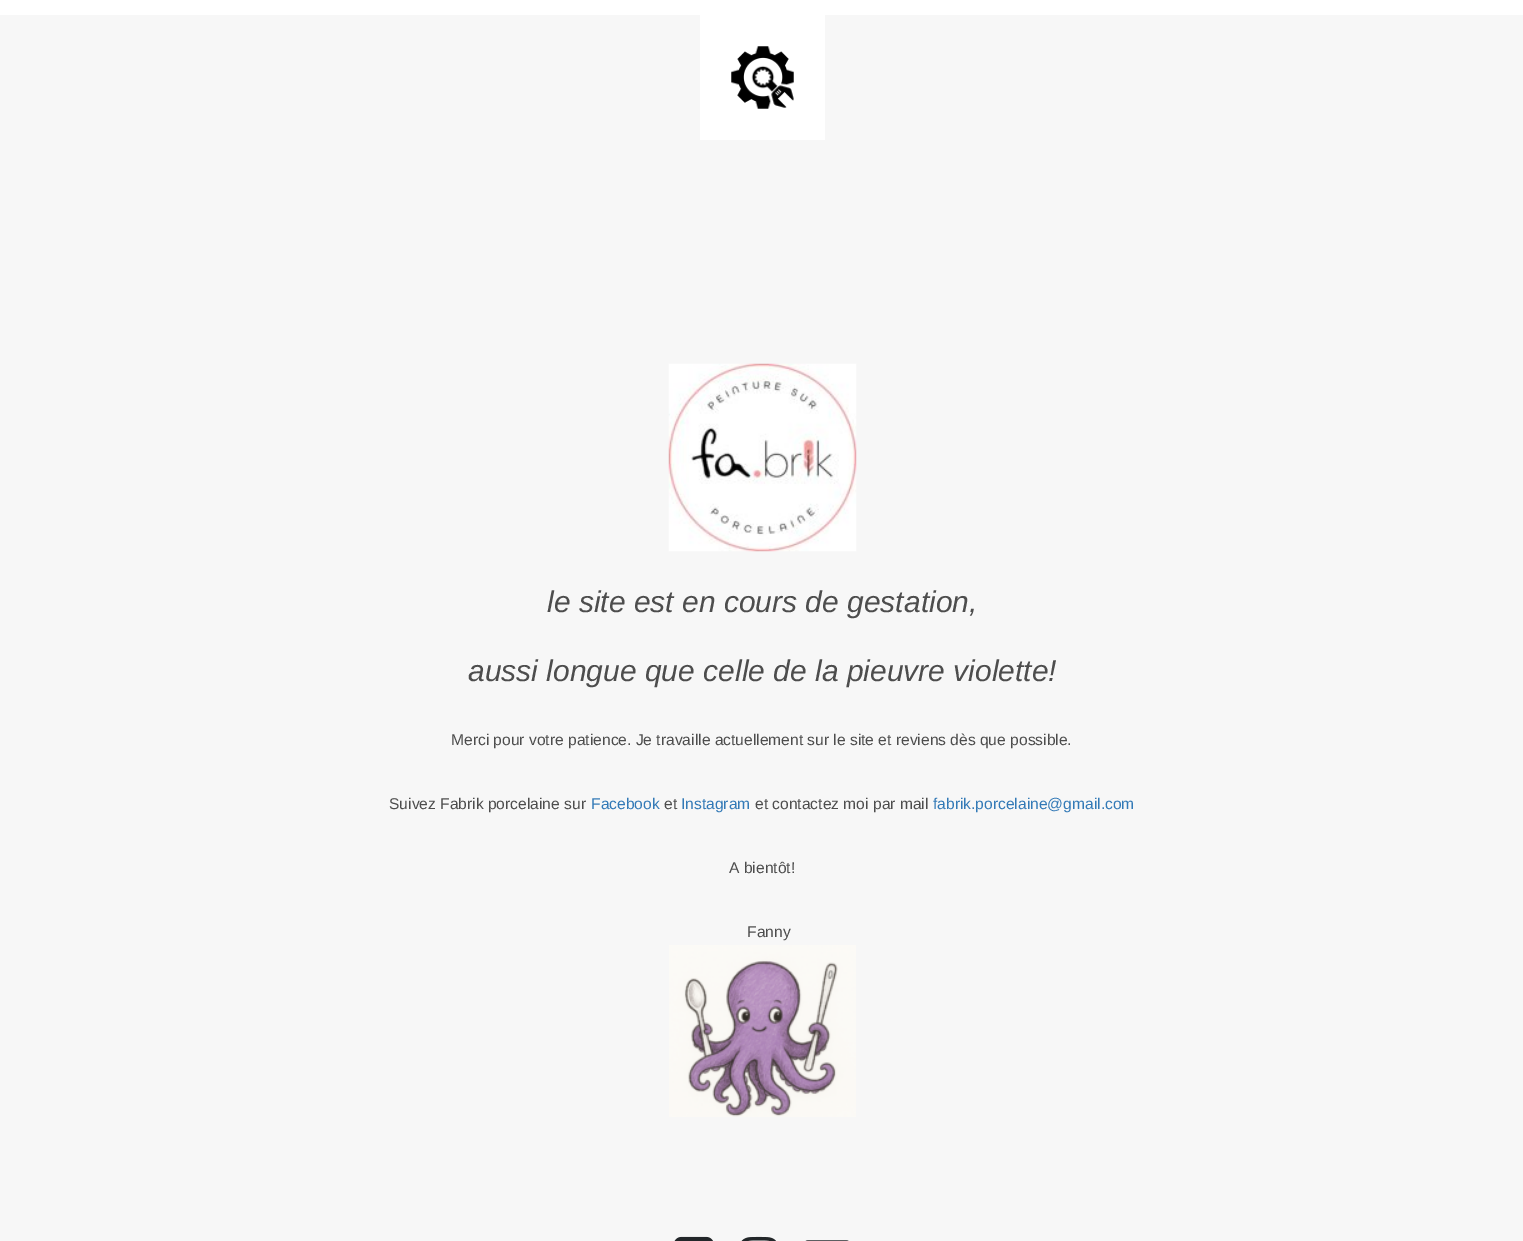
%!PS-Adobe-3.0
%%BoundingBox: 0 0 1523 1241
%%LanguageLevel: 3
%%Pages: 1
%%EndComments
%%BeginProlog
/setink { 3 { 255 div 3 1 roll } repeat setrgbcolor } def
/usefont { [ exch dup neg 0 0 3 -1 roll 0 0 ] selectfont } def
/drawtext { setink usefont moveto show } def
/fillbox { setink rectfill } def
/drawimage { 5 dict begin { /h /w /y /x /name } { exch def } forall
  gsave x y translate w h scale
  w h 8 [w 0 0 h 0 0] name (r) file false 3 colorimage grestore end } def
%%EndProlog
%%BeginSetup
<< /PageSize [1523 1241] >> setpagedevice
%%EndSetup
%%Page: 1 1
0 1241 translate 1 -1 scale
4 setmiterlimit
0 0 1523 1241 247 247 247 fillbox
0 0 1523 15 255 255 255 fillbox
700 15 125 125 255 255 255 fillbox
(assets/img1.rgb) 731 46 63 63 drawimage
(assets/img2.rgb) 668 363 189 189 drawimage
(le site est en cours de gestation,) 547 612 /LiberationSans-Italic 30 77 77 77 drawtext
(aussi longue que celle de la pieuvre violette!) 468 681 /LiberationSans-Italic 30 77 77 77 drawtext
(Merci pour votre patience. Je travaille actuellement sur le site et reviens dès que possible.) 451 745 /LiberationSans-Regular 15.6 77 77 77 drawtext
(Suivez Fabrik porcelaine sur) 389 809 /LiberationSans-Regular 15.6 77 77 77 drawtext
(Facebook) 591 809 /LiberationSans-Regular 15.6 51 122 183 drawtext
(et) 664 809 /LiberationSans-Regular 15.6 77 77 77 drawtext
(Instagram) 681 809 /LiberationSans-Regular 15.6 51 122 183 drawtext
(et contactez moi par mail) 755 809 /LiberationSans-Regular 15.6 77 77 77 drawtext
(fabrik.porcelaine@gmail.com) 933 809 /LiberationSans-Regular 15.6 51 122 183 drawtext
(A bientôt!) 729 873 /LiberationSans-Regular 15.6 77 77 77 drawtext
(Fanny) 747 937 /LiberationSans-Regular 15.6 77 77 77 drawtext
(assets/img3.rgb) 669 945 187 172 drawimage
(assets/img4.rgb) 674 1236 39 5 drawimage
(assets/img5.rgb) 741 1236 35 5 drawimage
(assets/img6.rgb) 805 1240 44 1 drawimage
showpage
%%EOF
